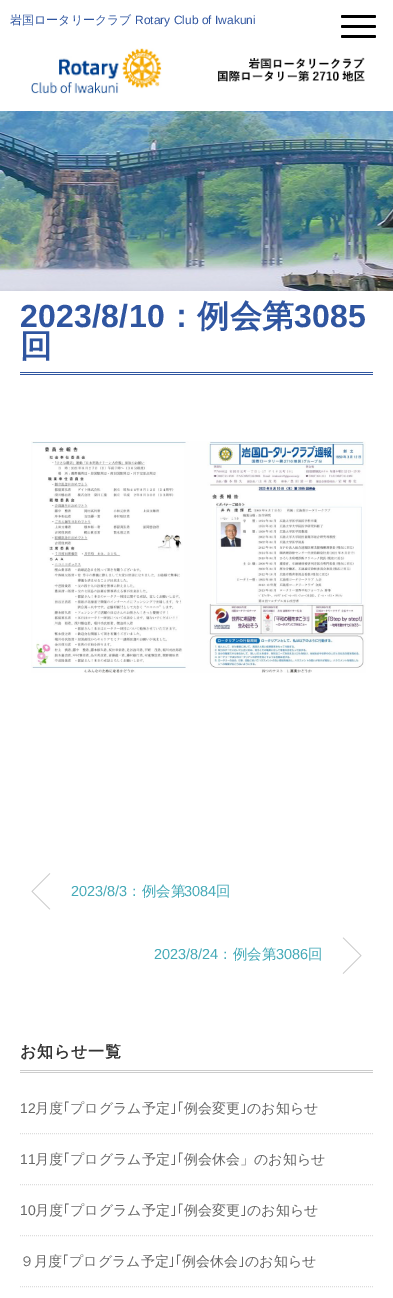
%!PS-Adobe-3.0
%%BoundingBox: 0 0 393 1298
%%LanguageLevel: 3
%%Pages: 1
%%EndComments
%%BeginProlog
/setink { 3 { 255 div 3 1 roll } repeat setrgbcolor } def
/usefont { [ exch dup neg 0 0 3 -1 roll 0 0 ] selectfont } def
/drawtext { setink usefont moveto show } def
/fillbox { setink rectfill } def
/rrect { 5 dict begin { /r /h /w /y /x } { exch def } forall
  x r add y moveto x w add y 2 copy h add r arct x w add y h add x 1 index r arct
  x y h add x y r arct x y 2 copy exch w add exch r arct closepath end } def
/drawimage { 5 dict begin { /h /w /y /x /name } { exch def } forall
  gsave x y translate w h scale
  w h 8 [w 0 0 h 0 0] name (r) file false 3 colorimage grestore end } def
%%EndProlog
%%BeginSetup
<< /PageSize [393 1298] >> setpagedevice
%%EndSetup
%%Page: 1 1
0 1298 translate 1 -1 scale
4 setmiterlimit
0 0 393 1298 255 255 255 fillbox
(岩国ロータリークラブ) 10 24 /WenQuanYiZenHei-Medium 12 47 85 160 drawtext
(Rotary Club of Iwakuni) 135 24 /LiberationSans-Regular 12 47 85 160 drawtext
(assets/img1.rgb) 31 48 131 46 drawimage
(assets/img2.rgb) 217 57 148 25 drawimage
0 0 0 setink
341 25 35 3 1.5 rrect fill
341 15 35 3 1.5 rrect fill
341 35 35 3 1.5 rrect fill
(assets/img3.rgb) 0 111 393 180 drawimage
20 372 353 1 47 85 160 fillbox
20 374 353 1 47 85 160 fillbox
/LiberationSans-Bold 32 usefont
20 327 moveto 0.25 0 (2023/8/10) ashow
/WenQuanYiZenHei-Bold 32 usefont
165 327 moveto 0.25 0 (：例会第) ashow
/LiberationSans-Bold 32 usefont
294 327 moveto 0.25 0 (3085) ashow
/WenQuanYiZenHei-Bold 32 usefont
20 357 moveto 0.25 0 (回) ashow
(assets/img4.rgb) 31 441 335 232 drawimage
(assets/img5.rgb) 31 873 20 37 drawimage
(2023/8/3) 71 896 /LiberationSans-Regular 14.5 69 170 184 drawtext
(：例会第) 127 896 /WenQuanYiZenHei-Medium 14.5 69 170 184 drawtext
(3084) 184 896 /LiberationSans-Regular 14.5 69 170 184 drawtext
(回) 216 896 /WenQuanYiZenHei-Medium 14.5 69 170 184 drawtext
(assets/img6.rgb) 342 937 20 37 drawimage
(2023/8/24) 154 959 /LiberationSans-Regular 14.5 69 170 184 drawtext
(：例会第) 218 959 /WenQuanYiZenHei-Medium 14.5 69 170 184 drawtext
(3086) 276 959 /LiberationSans-Regular 14.5 69 170 184 drawtext
(回) 308 959 /WenQuanYiZenHei-Medium 14.5 69 170 184 drawtext
20 1070 353 1 204 204 204 fillbox
20 1072 353 1 204 204 204 fillbox
/WenQuanYiZenHei-Bold 16 usefont
51 51 51 setink
20 1057 moveto 0.75 0 (お知らせ一覧) ashow
221 221 221 setink
[1 1] 0 setdash
20 1133.5 moveto 373 1133.5 lineto stroke
(12) 20 1113 /LiberationSans-Regular 14 102 102 102 drawtext
(月度) 35 1113 /WenQuanYiZenHei-Medium 14 102 102 102 drawtext
(｢) 63 1113 /IPAPGothic-Regular 14 102 102 102 drawtext
(プログラム予定) 70 1113 /WenQuanYiZenHei-Medium 14 102 102 102 drawtext
(｣｢) 170 1113 /IPAPGothic-Regular 14 102 102 102 drawtext
(例会変更) 184 1113 /WenQuanYiZenHei-Medium 14 102 102 102 drawtext
(｣) 240 1113 /IPAPGothic-Regular 14 102 102 102 drawtext
(のお知らせ) 247 1113 /WenQuanYiZenHei-Medium 14 102 102 102 drawtext
221 221 221 setink
20 1184.5 moveto 373 1184.5 lineto stroke
(11) 20 1164 /LiberationSans-Regular 14 102 102 102 drawtext
(月度) 35 1164 /WenQuanYiZenHei-Medium 14 102 102 102 drawtext
(｢) 63 1164 /IPAPGothic-Regular 14 102 102 102 drawtext
(プログラム予定) 70 1164 /WenQuanYiZenHei-Medium 14 102 102 102 drawtext
(｣｢) 170 1164 /IPAPGothic-Regular 14 102 102 102 drawtext
(例会休会」のお知らせ) 184 1164 /WenQuanYiZenHei-Medium 14 102 102 102 drawtext
221 221 221 setink
20 1235.5 moveto 373 1235.5 lineto stroke
(10) 20 1215 /LiberationSans-Regular 14 102 102 102 drawtext
(月度) 35 1215 /WenQuanYiZenHei-Medium 14 102 102 102 drawtext
(｢) 63 1215 /IPAPGothic-Regular 14 102 102 102 drawtext
(プログラム予定) 70 1215 /WenQuanYiZenHei-Medium 14 102 102 102 drawtext
(｣｢) 170 1215 /IPAPGothic-Regular 14 102 102 102 drawtext
(例会変更) 184 1215 /WenQuanYiZenHei-Medium 14 102 102 102 drawtext
(｣) 240 1215 /IPAPGothic-Regular 14 102 102 102 drawtext
(のお知らせ) 247 1215 /WenQuanYiZenHei-Medium 14 102 102 102 drawtext
221 221 221 setink
20 1286.5 moveto 373 1286.5 lineto stroke
(９月度) 20 1266 /WenQuanYiZenHei-Medium 14 102 102 102 drawtext
(｢) 62 1266 /IPAPGothic-Regular 14 102 102 102 drawtext
(プログラム予定) 69 1266 /WenQuanYiZenHei-Medium 14 102 102 102 drawtext
(｣｢) 168 1266 /IPAPGothic-Regular 14 102 102 102 drawtext
(例会休会) 182 1266 /WenQuanYiZenHei-Medium 14 102 102 102 drawtext
(｣) 238 1266 /IPAPGothic-Regular 14 102 102 102 drawtext
(のお知らせ) 245 1266 /WenQuanYiZenHei-Medium 14 102 102 102 drawtext
showpage
%%EOF
